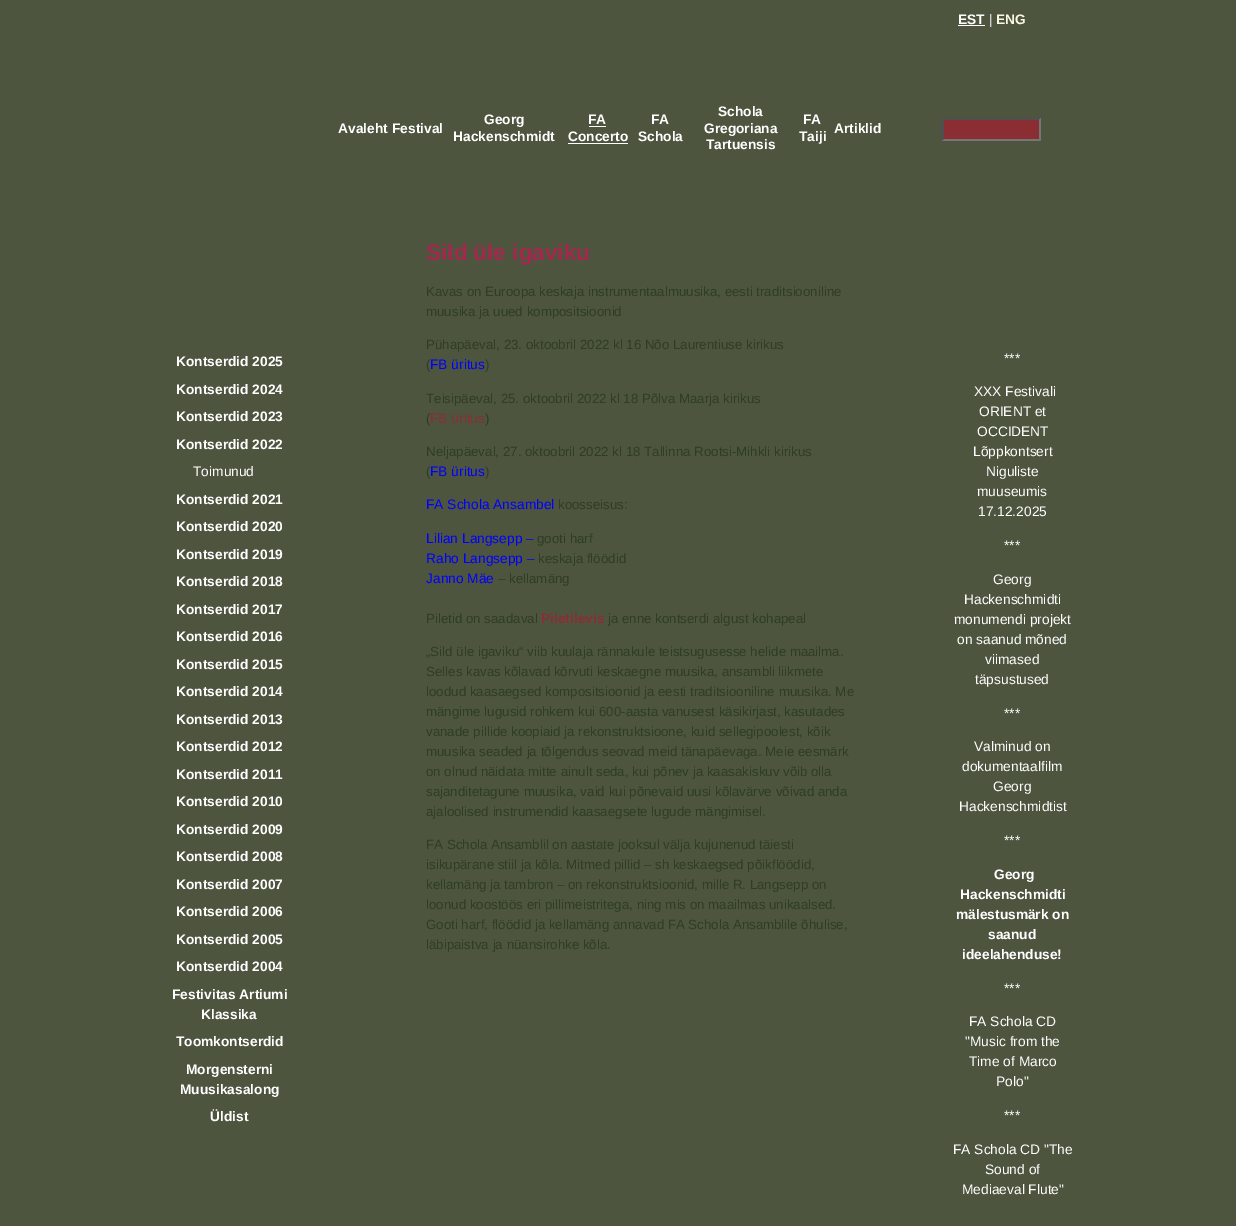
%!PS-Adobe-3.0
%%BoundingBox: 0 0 1236 1226
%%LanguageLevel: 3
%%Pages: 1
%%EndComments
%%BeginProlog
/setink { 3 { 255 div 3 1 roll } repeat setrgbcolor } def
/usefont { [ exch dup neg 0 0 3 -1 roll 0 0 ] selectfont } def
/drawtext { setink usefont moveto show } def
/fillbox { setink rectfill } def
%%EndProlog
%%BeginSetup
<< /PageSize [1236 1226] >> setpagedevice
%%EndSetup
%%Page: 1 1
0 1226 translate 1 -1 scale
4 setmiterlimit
0 0 1236 1226 77 85 63 fillbox
(EST) 958 24 /LiberationSans-Bold 13.75 255 255 255 drawtext
958 25 27 1 255 255 255 fillbox
(|) 989 24 /LiberationSans-Regular 13.75 255 255 255 drawtext
(ENG) 996 24 /LiberationSans-Bold 13.75 252 247 226 drawtext
(Avaleht) 338 133 /LiberationSans-Bold 13.75 255 255 255 drawtext
(Festival) 392 133 /LiberationSans-Bold 13.75 255 255 255 drawtext
(Georg) 484 124 /LiberationSans-Bold 13.75 255 255 255 drawtext
(Hackenschmidt) 453 141 /LiberationSans-Bold 13.75 255 255 255 drawtext
(FA) 588 124 /LiberationSans-Bold 13.75 255 255 255 drawtext
589 126 17 1 255 255 255 fillbox
(Concerto) 568 141 /LiberationSans-Bold 13.75 255 255 255 drawtext
568 143 60 1 255 255 255 fillbox
(FA) 651 124 /LiberationSans-Bold 13.75 255 255 255 drawtext
(Schola) 638 141 /LiberationSans-Bold 13.75 255 255 255 drawtext
(Schola) 718 116 /LiberationSans-Bold 13.75 255 255 255 drawtext
(Gregoriana) 704 133 /LiberationSans-Bold 13.75 255 255 255 drawtext
(Tartuensis) 706 149 /LiberationSans-Bold 13.75 255 255 255 drawtext
(FA) 803 124 /LiberationSans-Bold 13.75 255 255 255 drawtext
(Taiji) 799 141 /LiberationSans-Bold 13.75 255 255 255 drawtext
(Artiklid) 834 133 /LiberationSans-Bold 13.75 255 255 255 drawtext
941 118 100 23 138 46 52 fillbox
79 79 79 setink
941 118 moveto 1041 118 lineto 1039 120 lineto 944 120 lineto closepath fill
118 118 118 setink
1041 117.5 moveto 1041 141 lineto 1039 139 lineto 1039 120 lineto closepath fill
1041 141 moveto 941 141 lineto 944 139 lineto 1039 139 lineto closepath fill
79 79 79 setink
941 141 moveto 941 117.5 lineto 944 120 lineto 944 139 lineto closepath fill
(Kontserdid 2025) 176 366 /LiberationSans-Bold 13.75 255 255 255 drawtext
(Kontserdid 2024) 176 394 /LiberationSans-Bold 13.75 255 255 255 drawtext
(Kontserdid 2023) 176 421 /LiberationSans-Bold 13.75 255 255 255 drawtext
(Kontserdid 2022) 176 449 /LiberationSans-Bold 13.75 255 255 255 drawtext
(Toimunud) 193 476 /LiberationSans-Regular 13.75 255 255 255 drawtext
(Kontserdid 2021) 176 504 /LiberationSans-Bold 13.75 255 255 255 drawtext
(Kontserdid 2020) 176 531 /LiberationSans-Bold 13.75 255 255 255 drawtext
(Kontserdid 2019) 176 559 /LiberationSans-Bold 13.75 255 255 255 drawtext
(Kontserdid 2018) 176 586 /LiberationSans-Bold 13.75 255 255 255 drawtext
(Kontserdid 2017) 176 614 /LiberationSans-Bold 13.75 255 255 255 drawtext
(Kontserdid 2016) 176 641 /LiberationSans-Bold 13.75 255 255 255 drawtext
(Kontserdid 2015) 176 669 /LiberationSans-Bold 13.75 255 255 255 drawtext
(Kontserdid 2014) 176 696 /LiberationSans-Bold 13.75 255 255 255 drawtext
(Kontserdid 2013) 176 724 /LiberationSans-Bold 13.75 255 255 255 drawtext
(Kontserdid 2012) 176 751 /LiberationSans-Bold 13.75 255 255 255 drawtext
(Kontserdid 2011) 176 779 /LiberationSans-Bold 13.75 255 255 255 drawtext
(Kontserdid 2010) 176 806 /LiberationSans-Bold 13.75 255 255 255 drawtext
(Kontserdid 2009) 176 834 /LiberationSans-Bold 13.75 255 255 255 drawtext
(Kontserdid 2008) 176 861 /LiberationSans-Bold 13.75 255 255 255 drawtext
(Kontserdid 2007) 176 889 /LiberationSans-Bold 13.75 255 255 255 drawtext
(Kontserdid 2006) 176 916 /LiberationSans-Bold 13.75 255 255 255 drawtext
(Kontserdid 2005) 176 944 /LiberationSans-Bold 13.75 255 255 255 drawtext
(Kontserdid 2004) 176 971 /LiberationSans-Bold 13.75 255 255 255 drawtext
(Festivitas Artiumi) 172 999 /LiberationSans-Bold 13.75 255 255 255 drawtext
(Klassika) 201 1019 /LiberationSans-Bold 13.75 255 255 255 drawtext
(Toomkontserdid) 176 1046 /LiberationSans-Bold 13.75 255 255 255 drawtext
(Morgensterni) 186 1074 /LiberationSans-Bold 13.75 255 255 255 drawtext
(Muusikasalong) 180 1094 /LiberationSans-Bold 13.75 255 255 255 drawtext
(Üldist) 210 1121 /LiberationSans-Bold 13.75 255 255 255 drawtext
(Sild üle igaviku) 426 260 /LiberationSans-Bold 22.5 164 40 77 drawtext
(Kavas on Euroopa keskaja instrumentaalmuusika, eesti traditsiooniline) 426 296 /LiberationSans-Regular 13.3 46 61 35 drawtext
(muusika ja uued kompositsioonid) 426 316 /LiberationSans-Regular 13.3 46 61 35 drawtext
(Pühapäeval, 23. oktoobril 2022 kl 16 Nõo Laurentiuse kirikus) 426 349 /LiberationSans-Regular 13.3 46 61 35 drawtext
(\() 426 369 /LiberationSans-Regular 13.3 46 61 35 drawtext
(FB üritus) 430 369 /LiberationSans-Regular 13.75 0 0 255 drawtext
(\)) 485 369 /LiberationSans-Regular 13.3 46 61 35 drawtext
(Teisipäeval, 25. oktoobril 2022 kl 18 Põlva Maarja kirikus) 426 403 /LiberationSans-Regular 13.3 46 61 35 drawtext
(\() 426 423 /LiberationSans-Regular 13.3 46 61 35 drawtext
(FB üritus) 430 423 /LiberationSans-Regular 13.75 138 46 52 drawtext
(\)) 485 423 /LiberationSans-Regular 13.3 46 61 35 drawtext
(Neljapäeval, 27. oktoobril 2022 kl 18 Tallinna Rootsi-Mihkli kirikus) 426 456 /LiberationSans-Regular 13.3 46 61 35 drawtext
(\() 426 476 /LiberationSans-Regular 13.3 46 61 35 drawtext
(FB üritus) 430 476 /LiberationSans-Regular 13.75 0 0 255 drawtext
(\)) 485 476 /LiberationSans-Regular 13.3 46 61 35 drawtext
(FA Schola Ansambel) 426 509 /LiberationSans-Regular 13.75 0 0 255 drawtext
(koosseisus:) 558 509 /LiberationSans-Regular 13.3 46 61 35 drawtext
(Lilian Langsepp) 426 543 /LiberationSans-Regular 13.75 0 0 255 drawtext
(–) 526 543 /LiberationSans-Regular 13.3 0 0 255 drawtext
(gooti harf) 537 543 /LiberationSans-Regular 13.3 46 61 35 drawtext
(Raho Langsepp) 426 563 /LiberationSans-Regular 13.75 0 0 255 drawtext
(–) 527 563 /LiberationSans-Regular 13.3 0 0 255 drawtext
(keskaja flöödid) 538 563 /LiberationSans-Regular 13.3 46 61 35 drawtext
(Janno Mäe) 426 583 /LiberationSans-Regular 13.75 0 0 255 drawtext
(– kellamäng) 498 583 /LiberationSans-Regular 13.3 46 61 35 drawtext
(Piletid on saadaval) 426 623 /LiberationSans-Regular 13.3 46 61 35 drawtext
(Piletilevis) 541 623 /LiberationSans-Bold 13.75 138 46 52 drawtext
(ja enne kontserdi algust kohapeal) 608 623 /LiberationSans-Regular 13.3 46 61 35 drawtext
(„Sild üle igaviku“ viib kuulaja rännakule teistsugusesse helide maailma.) 426 656 /LiberationSans-Regular 13.3 46 61 35 drawtext
(Selles kavas kõlavad kõrvuti keskaegne muusika, ansambli liikmete) 426 676 /LiberationSans-Regular 13.3 46 61 35 drawtext
(loodud kaasaegsed kompositsioonid ja eesti traditsiooniline muusika. Me) 426 696 /LiberationSans-Regular 13.3 46 61 35 drawtext
(mängime lugusid rohkem kui 600-aasta vanusest käsikirjast, kasutades) 426 716 /LiberationSans-Regular 13.3 46 61 35 drawtext
(vanade pillide koopiaid ja rekonstruktsioone, kuid sellegipoolest, kõik) 426 736 /LiberationSans-Regular 13.3 46 61 35 drawtext
(muusika seaded ja tõlgendus seovad meid tänapäevaga. Meie eesmärk) 426 756 /LiberationSans-Regular 13.3 46 61 35 drawtext
(on olnud näidata mitte ainult seda, kui põnev ja kaasakiskuv võib olla) 426 776 /LiberationSans-Regular 13.3 46 61 35 drawtext
(sajanditetagune muusika, vaid kui põnevaid uusi kõlavärve võivad anda) 426 796 /LiberationSans-Regular 13.3 46 61 35 drawtext
(ajaloolised instrumendid kaasaegsete lugude mängimisel.) 426 816 /LiberationSans-Regular 13.3 46 61 35 drawtext
(FA Schola Ansamblil on aastate jooksul välja kujunenud täiesti) 426 849 /LiberationSans-Regular 13.3 46 61 35 drawtext
(isikupärane stiil ja kõla. Mitmed pillid – sh keskaegsed põikflöödid,) 426 869 /LiberationSans-Regular 13.3 46 61 35 drawtext
(kellamäng ja tambron – on rekonstruktsioonid, mille R. Langsepp on) 426 889 /LiberationSans-Regular 13.3 46 61 35 drawtext
(loonud koostöös eri pillimeistritega, ning mis on maailmas unikaalsed.) 426 909 /LiberationSans-Regular 13.3 46 61 35 drawtext
(Gooti harf, flöödid ja kellamäng annavad FA Schola Ansamblile õhulise,) 426 929 /LiberationSans-Regular 13.3 46 61 35 drawtext
(läbipaistva ja nüansirohke kõla.) 426 949 /LiberationSans-Regular 13.3 46 61 35 drawtext
(***) 1004 363 /LiberationSans-Regular 13.75 255 255 255 drawtext
(XXX Festivali) 974 396 /LiberationSans-Regular 13.75 255 255 255 drawtext
(ORIENT et) 979 416 /LiberationSans-Regular 13.75 255 255 255 drawtext
(OCCIDENT) 977 436 /LiberationSans-Regular 13.75 255 255 255 drawtext
(Lõppkontsert) 973 456 /LiberationSans-Regular 13.75 255 255 255 drawtext
(Niguliste) 986 476 /LiberationSans-Regular 13.75 255 255 255 drawtext
(muuseumis) 977 496 /LiberationSans-Regular 13.75 255 255 255 drawtext
(17.12.2025) 978 516 /LiberationSans-Regular 13.75 255 255 255 drawtext
(***) 1004 550 /LiberationSans-Regular 13.75 255 255 255 drawtext
(Georg) 993 584 /LiberationSans-Regular 13.75 255 255 255 drawtext
(Hackenschmidti) 964 604 /LiberationSans-Regular 13.75 255 255 255 drawtext
(monumendi projekt) 954 624 /LiberationSans-Regular 13.75 255 255 255 drawtext
(on saanud mõned) 957 644 /LiberationSans-Regular 13.75 255 255 255 drawtext
(viimased) 985 664 /LiberationSans-Regular 13.75 255 255 255 drawtext
(täpsustused) 975 684 /LiberationSans-Regular 13.75 255 255 255 drawtext
(***) 1004 718 /LiberationSans-Regular 13.75 255 255 255 drawtext
(Valminud on) 974 751 /LiberationSans-Regular 13.75 255 255 255 drawtext
(dokumentaalfilm) 962 771 /LiberationSans-Regular 13.75 255 255 255 drawtext
(Georg) 993 791 /LiberationSans-Regular 13.75 255 255 255 drawtext
(Hackenschmidtist) 959 811 /LiberationSans-Regular 13.75 255 255 255 drawtext
(***) 1004 845 /LiberationSans-Regular 13.75 255 255 255 drawtext
(Georg) 994 879 /LiberationSans-Bold 13.75 255 255 255 drawtext
(Hackenschmidti) 960 899 /LiberationSans-Bold 13.75 255 255 255 drawtext
(mälestusmärk on) 956 919 /LiberationSans-Bold 13.75 255 255 255 drawtext
(saanud) 988 939 /LiberationSans-Bold 13.75 255 255 255 drawtext
(ideelahenduse!) 962 959 /LiberationSans-Bold 13.75 255 255 255 drawtext
(***) 1004 993 /LiberationSans-Regular 13.75 255 255 255 drawtext
(FA Schola CD) 969 1026 /LiberationSans-Regular 13.75 255 255 255 drawtext
("Music from the) 965 1046 /LiberationSans-Regular 13.75 255 255 255 drawtext
(Time of Marco) 969 1066 /LiberationSans-Regular 13.75 255 255 255 drawtext
(Polo") 996 1086 /LiberationSans-Regular 13.75 255 255 255 drawtext
(***) 1004 1120 /LiberationSans-Regular 13.75 255 255 255 drawtext
(FA Schola CD "The) 953 1154 /LiberationSans-Regular 13.75 255 255 255 drawtext
(Sound of) 985 1174 /LiberationSans-Regular 13.75 255 255 255 drawtext
(Mediaeval Flute") 962 1194 /LiberationSans-Regular 13.75 255 255 255 drawtext
showpage
%%EOF
